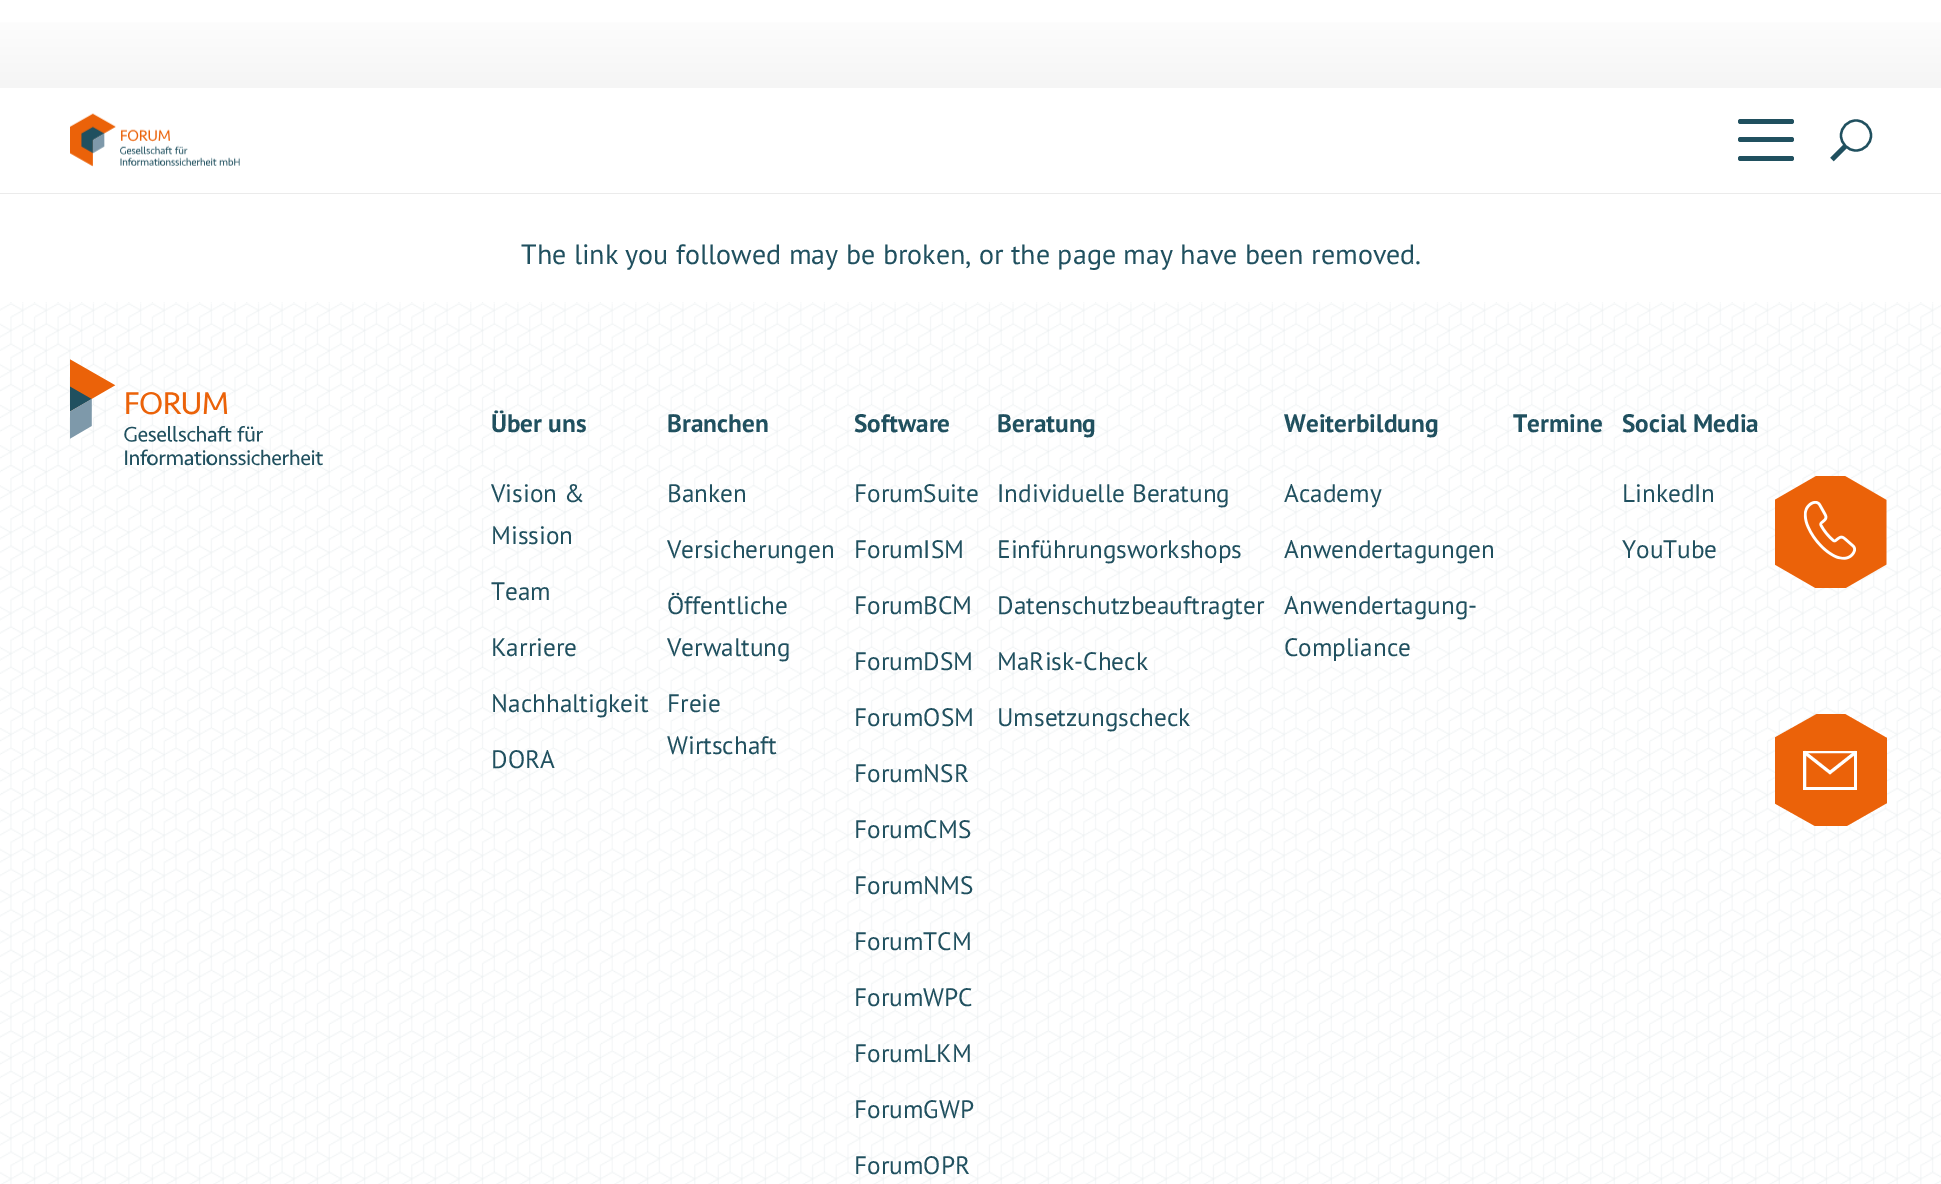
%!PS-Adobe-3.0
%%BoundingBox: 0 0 1941 1184
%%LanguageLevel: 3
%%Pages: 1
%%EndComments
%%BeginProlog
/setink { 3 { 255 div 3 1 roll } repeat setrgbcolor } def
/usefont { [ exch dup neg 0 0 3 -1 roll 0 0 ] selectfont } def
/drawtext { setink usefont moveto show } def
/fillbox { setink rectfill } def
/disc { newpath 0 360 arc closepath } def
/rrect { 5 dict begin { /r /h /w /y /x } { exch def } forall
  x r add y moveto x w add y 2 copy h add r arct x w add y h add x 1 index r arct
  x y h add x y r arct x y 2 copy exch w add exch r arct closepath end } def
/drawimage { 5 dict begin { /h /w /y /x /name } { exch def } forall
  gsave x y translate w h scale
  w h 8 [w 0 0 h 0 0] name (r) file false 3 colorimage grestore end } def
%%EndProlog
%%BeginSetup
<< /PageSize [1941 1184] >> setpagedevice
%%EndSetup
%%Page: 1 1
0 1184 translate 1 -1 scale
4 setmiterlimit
0 0 1941 1184 255 255 255 fillbox
gsave 0 22 moveto 1941 22 lineto 1941 88 lineto 0 88 lineto closepath clip newpath
<< /ShadingType 2 /ColorSpace /DeviceRGB /Coords [971 88 971 0] /Extend [true true] /Function << /FunctionType 2 /Domain [0 1] /C0 [0.961 0.961 0.961] /C1 [1 1 1] /N 1 >> >> shfill grestore
235 235 235 setink
0 192 moveto 0 194 lineto 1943 194 lineto 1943 89 lineto 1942 89 lineto 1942 192 lineto closepath fill
0 192 1941 1 255 255 255 fillbox
(assets/img1.rgb) 70 113 170 54 drawimage
32 80 95 setink
1738 137 56 5 2.5 rrect fill
1738 119 56 5 2.5 rrect fill
1738 156 56 5 2.5 rrect fill
2.3 setlinewidth
1856 135.5 15 disc stroke
4.7 setlinewidth
1845 146.5 moveto 1832 159.5 lineto stroke
(The link you followed may be broken, or the page may have been removed.) 521 264 /PTSans-Regular 28 32 80 95 drawtext
(assets/img2.rgb) 0 302 1941 882 drawimage
(assets/img3.rgb) 70 359 253 107 drawimage
(Über uns) 491 432 /PTSans-Bold 25.25 32 80 95 drawtext
(Vision &) 491 502 /PTSans-Regular 25.25 32 80 95 drawtext
(Mission) 491 544 /PTSans-Regular 25.25 32 80 95 drawtext
(Team) 491 600 /PTSans-Regular 25.25 32 80 95 drawtext
(Karriere) 491 656 /PTSans-Regular 25.25 32 80 95 drawtext
(Nachhaltigkeit) 491 712 /PTSans-Regular 25.25 32 80 95 drawtext
(DORA) 491 768 /PTSans-Regular 25.25 32 80 95 drawtext
(Branchen) 667 432 /PTSans-Bold 25.25 32 80 95 drawtext
(Banken) 667 502 /PTSans-Regular 25.25 32 80 95 drawtext
(Versicherungen) 667 558 /PTSans-Regular 25.25 32 80 95 drawtext
(Öffentliche) 667 614 /PTSans-Regular 25.25 32 80 95 drawtext
(Verwaltung) 667 656 /PTSans-Regular 25.25 32 80 95 drawtext
(Freie) 667 712 /PTSans-Regular 25.25 32 80 95 drawtext
(Wirtschaft) 667 754 /PTSans-Regular 25.25 32 80 95 drawtext
(Software) 854 432 /PTSans-Bold 25.25 32 80 95 drawtext
(ForumSuite) 854 502 /PTSans-Regular 25.25 32 80 95 drawtext
(ForumISM) 854 558 /PTSans-Regular 25.25 32 80 95 drawtext
(ForumBCM) 854 614 /PTSans-Regular 25.25 32 80 95 drawtext
(ForumDSM) 854 670 /PTSans-Regular 25.25 32 80 95 drawtext
(ForumOSM) 854 726 /PTSans-Regular 25.25 32 80 95 drawtext
(ForumNSR) 854 782 /PTSans-Regular 25.25 32 80 95 drawtext
(ForumCMS) 854 838 /PTSans-Regular 25.25 32 80 95 drawtext
(ForumNMS) 854 894 /PTSans-Regular 25.25 32 80 95 drawtext
(ForumTCM) 854 950 /PTSans-Regular 25.25 32 80 95 drawtext
(ForumWPC) 854 1006 /PTSans-Regular 25.25 32 80 95 drawtext
(ForumLKM) 854 1062 /PTSans-Regular 25.25 32 80 95 drawtext
(ForumGWP) 854 1118 /PTSans-Regular 25.25 32 80 95 drawtext
(ForumOPR) 854 1174 /PTSans-Regular 25.25 32 80 95 drawtext
(Beratung) 997 432 /PTSans-Bold 25.25 32 80 95 drawtext
(Individuelle Beratung) 997 502 /PTSans-Regular 25.25 32 80 95 drawtext
(Einführungsworkshops) 997 558 /PTSans-Regular 25.25 32 80 95 drawtext
(Datenschutzbeauftragter) 997 614 /PTSans-Regular 25.25 32 80 95 drawtext
(MaRisk-Check) 997 670 /PTSans-Regular 25.25 32 80 95 drawtext
(Umsetzungscheck) 997 726 /PTSans-Regular 25.25 32 80 95 drawtext
(Weiterbildung) 1284 432 /PTSans-Bold 25.25 32 80 95 drawtext
(Academy) 1284 502 /PTSans-Regular 25.25 32 80 95 drawtext
(Anwendertagungen) 1284 558 /PTSans-Regular 25.25 32 80 95 drawtext
(Anwendertagung-) 1284 614 /PTSans-Regular 25.25 32 80 95 drawtext
(Compliance) 1284 656 /PTSans-Regular 25.25 32 80 95 drawtext
(Termine) 1513 432 /PTSans-Bold 25.25 32 80 95 drawtext
(Social Media) 1622 432 /PTSans-Bold 25.25 32 80 95 drawtext
(LinkedIn) 1622 502 /PTSans-Regular 25.25 32 80 95 drawtext
(YouTube) 1622 558 /PTSans-Regular 25.25 32 80 95 drawtext
(assets/img4.rgb) 1775 476 112 112 drawimage
gsave
1775 714 112 112 rectclip
235 98 9 setink
1831 706 moveto 1774 738 lineto 1774 803 lineto 1831 835 lineto 1887 803 lineto 1887 738 lineto closepath fill
grestore
gsave
1803 751 54 39 rectclip
255 255 255 setink
3 setlinewidth
1804.5 751.5 51 37 rectstroke
grestore
255 255 255 setink
3 setlinewidth
1804 752 moveto 1830 772.5 lineto 1856 752 lineto stroke
showpage
%%EOF
